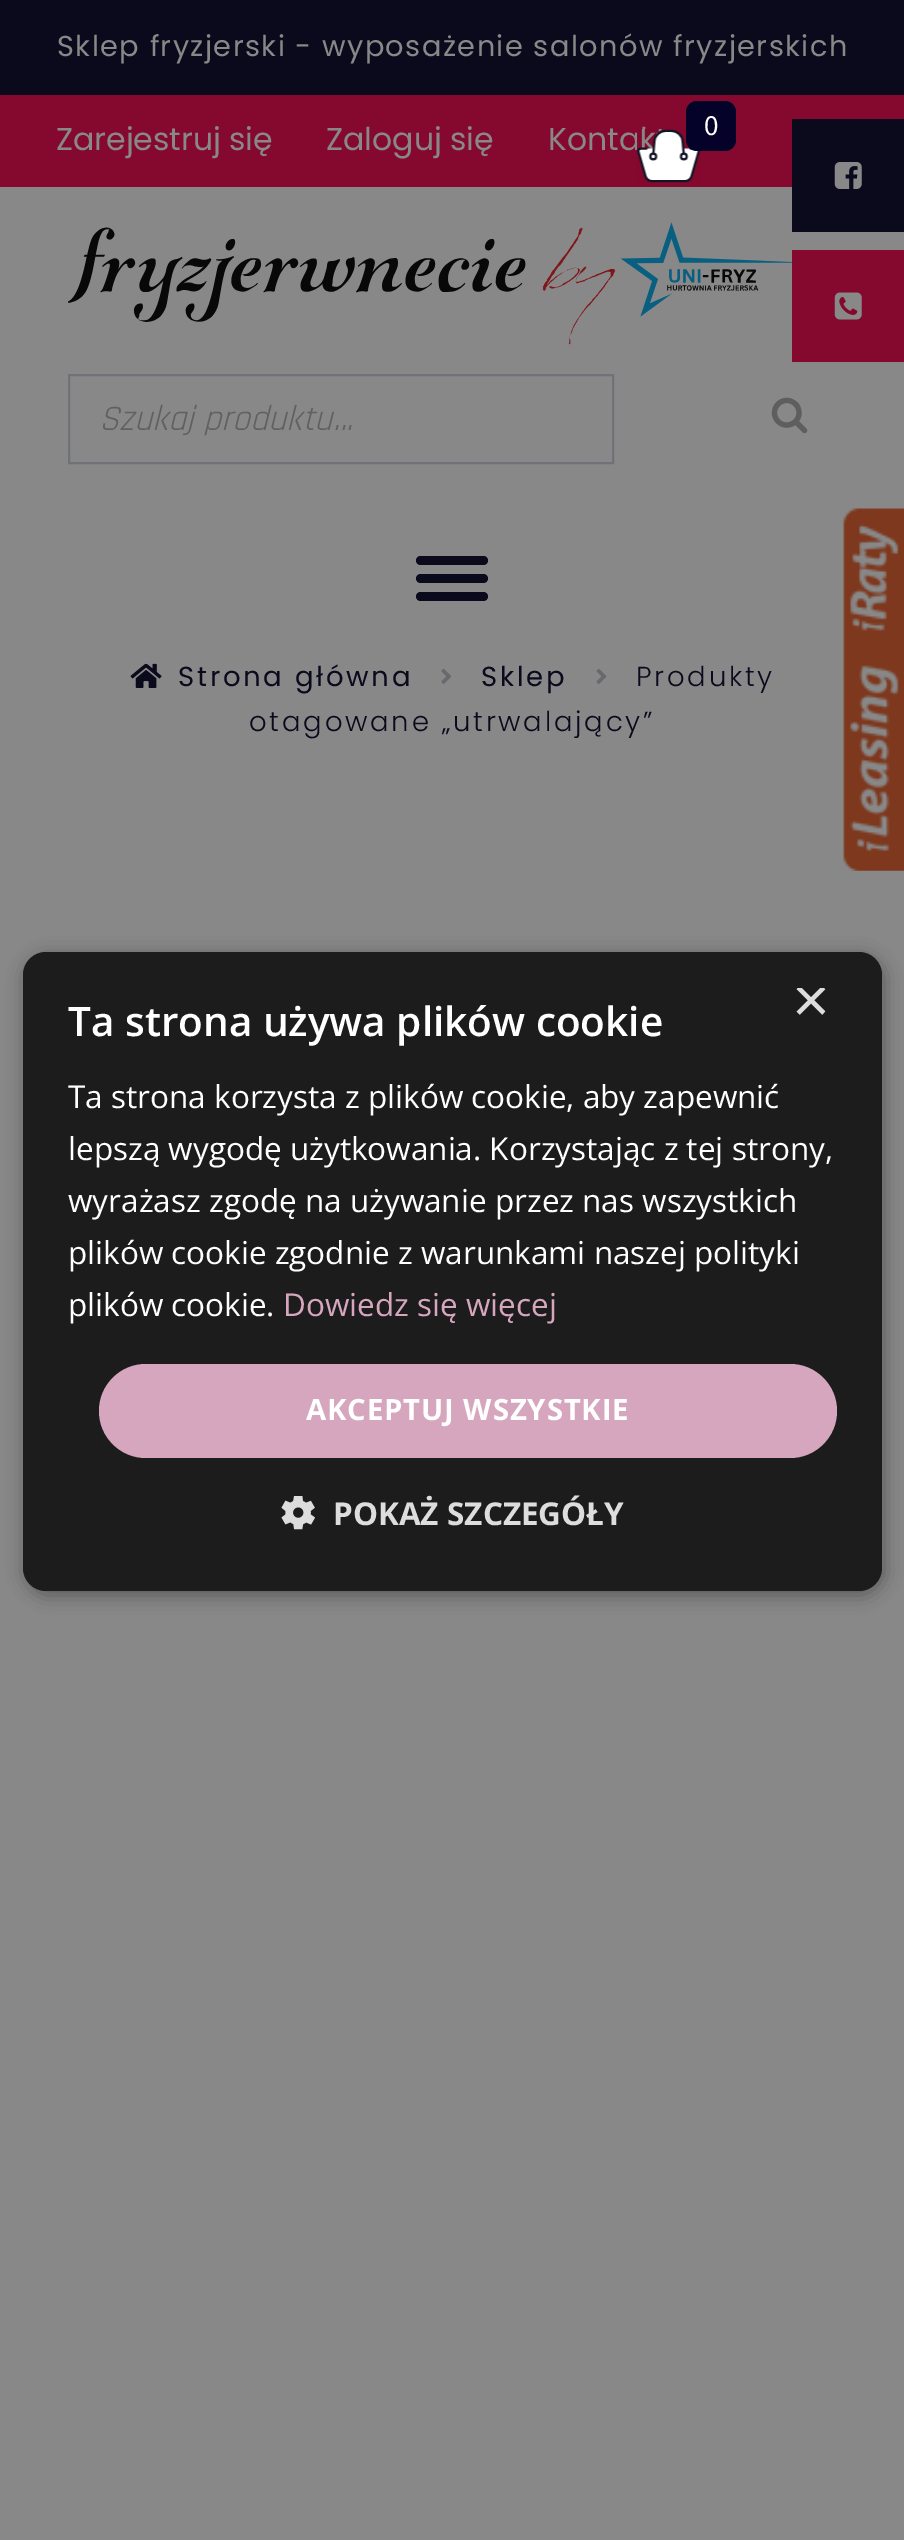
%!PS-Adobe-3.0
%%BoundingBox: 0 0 904 2540
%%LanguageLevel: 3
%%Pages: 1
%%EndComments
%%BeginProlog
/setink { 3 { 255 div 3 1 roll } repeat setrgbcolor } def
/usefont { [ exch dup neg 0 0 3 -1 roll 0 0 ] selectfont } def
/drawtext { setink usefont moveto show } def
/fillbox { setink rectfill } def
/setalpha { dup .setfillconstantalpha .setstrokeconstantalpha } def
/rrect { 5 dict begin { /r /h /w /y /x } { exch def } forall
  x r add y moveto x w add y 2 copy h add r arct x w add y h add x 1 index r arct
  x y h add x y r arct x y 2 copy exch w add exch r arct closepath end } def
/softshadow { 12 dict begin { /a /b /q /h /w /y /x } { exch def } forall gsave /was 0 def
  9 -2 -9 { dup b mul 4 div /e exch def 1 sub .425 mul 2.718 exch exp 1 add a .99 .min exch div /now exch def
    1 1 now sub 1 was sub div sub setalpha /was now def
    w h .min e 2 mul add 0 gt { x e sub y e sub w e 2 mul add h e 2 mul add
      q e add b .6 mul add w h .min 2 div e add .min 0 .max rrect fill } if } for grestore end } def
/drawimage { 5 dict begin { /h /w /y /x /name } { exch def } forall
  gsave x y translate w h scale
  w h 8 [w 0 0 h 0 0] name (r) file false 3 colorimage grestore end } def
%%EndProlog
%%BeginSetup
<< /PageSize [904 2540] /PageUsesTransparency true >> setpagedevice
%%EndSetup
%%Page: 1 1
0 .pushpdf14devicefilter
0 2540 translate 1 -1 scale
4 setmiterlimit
0 0 904 2540 136 136 136 fillbox
0 0 904 95 11 10 29 fillbox
/Poppins-Regular 28.8 usefont
136 136 136 setink
57 56 moveto 1.45 0 (Sklep fryzjerski - wyposażenie salonów fryzjerskich) ashow
0 95 904 92 133 9 47 fillbox
(Zarejestruj się) 56 150 /Poppins-Regular 31.5 136 136 136 drawtext
(Zaloguj się) 326 150 /Poppins-Regular 31.5 136 136 136 drawtext
(Kontak) 548 150 /Poppins-Regular 31.5 136 136 136 drawtext
792 119 112 113 11 10 29 fillbox
(assets/img1.rgb) 834 162 28 27 drawimage
792 250 112 112 133 9 47 fillbox
(assets/img2.rgb) 834 292 28 28 drawimage
(assets/img3.rgb) 68 222 724 123 drawimage
111 115 119 setink
2 setlinewidth
69 375 544 88 rectstroke
(Szukaj produktu...) 99 430 /Rajdhani-Italic 36 96 96 96 drawtext
(assets/img4.rgb) 771 397 37 37 drawimage
11 10 29 setink
416 556 72 9 4.5 rrect fill
416 574 72 9 4.5 rrect fill
416 592 72 9 4.5 rrect fill
(assets/img5.rgb) 130 663 32 25 drawimage
/Poppins-Regular 27.5 usefont
178 686 moveto 2.75 0 (Strona główna) ashow
(assets/img6.rgb) 441 668 10 16 drawimage
481 686 moveto 2.75 0 (Sklep) ashow
(assets/img7.rgb) 596 669 11 15 drawimage
/Poppins-Light 27.5 usefont
636 686 moveto 2.75 0 (Produkty) ashow
249 731 moveto 2.75 0 (otagowane „utrwalający”) ashow
(assets/img8.rgb) 636 129 65 54 drawimage
4 2 40 setink
686 101 50 50 11 rrect fill
(0) 704 135 /SourceSansPro-Regular 29.25 255 255 255 drawtext
(assets/img9.rgb) 843 508 61 363 drawimage
0 0 0 setink
25 956 859 639 23 9 0.35 softshadow
28 28 28 setink
23 952 859 639 23 rrect fill
gsave
792 988 34 34 rectclip
(×) 792 1022 /LiberationSans-Regular 65 221 221 221 drawtext
grestore
(Ta strona używa plików cookie) 68 1036 /OpenSans-SemiBold 40.5 255 255 255 drawtext
(Ta strona korzysta z plików cookie, aby zapewnić) 68 1108 /OpenSans-Regular 31.5 255 255 255 drawtext
(lepszą wygodę użytkowania. Korzystając z tej strony,) 68 1160 /OpenSans-Regular 31.5 255 255 255 drawtext
(wyrażasz zgodę na używanie przez nas wszystkich) 68 1212 /OpenSans-Regular 31.5 255 255 255 drawtext
(plików cookie zgodnie z warunkami naszej polityki) 68 1264 /OpenSans-Regular 31.5 255 255 255 drawtext
(plików cookie.) 68 1316 /OpenSans-Regular 31.5 255 255 255 drawtext
(Dowiedz się więcej) 283 1316 /OpenSans-Regular 31.5 213 166 189 drawtext
99 1364 738 94 47 rrect fill
/OpenSans-Bold 29.25 usefont
255 255 255 setink
306 1420 moveto 0.9 0 (AKCEPTUJ WSZYSTKIE) ashow
(assets/img10.rgb) 281 1496 34 34 drawimage
(POKAŻ SZCZEGÓŁY) 333 1525 /OpenSans-Bold 31.5 221 221 221 drawtext
.poppdf14devicefilter showpage
%%EOF
